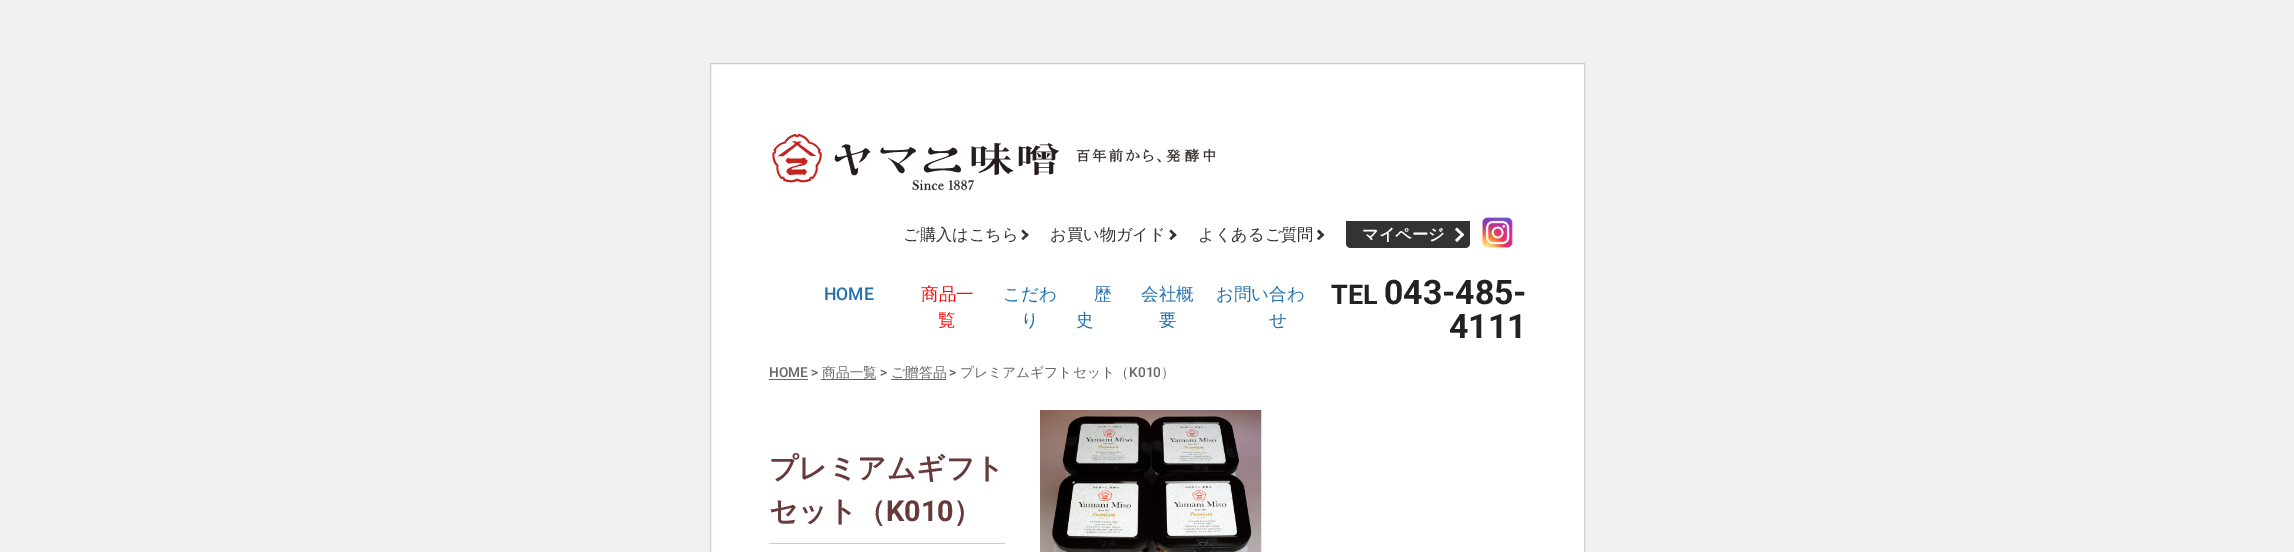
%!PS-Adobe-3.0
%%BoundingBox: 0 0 2294 552
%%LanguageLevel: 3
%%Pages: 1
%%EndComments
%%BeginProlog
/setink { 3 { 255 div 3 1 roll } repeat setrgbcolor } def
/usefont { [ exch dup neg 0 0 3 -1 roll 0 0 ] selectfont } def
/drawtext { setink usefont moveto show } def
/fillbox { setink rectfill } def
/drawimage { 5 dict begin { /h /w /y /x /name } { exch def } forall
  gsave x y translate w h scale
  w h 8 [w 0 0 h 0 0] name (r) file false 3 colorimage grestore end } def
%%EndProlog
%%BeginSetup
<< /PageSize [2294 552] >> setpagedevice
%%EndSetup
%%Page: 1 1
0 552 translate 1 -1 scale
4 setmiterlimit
0 0 2294 552 241 241 241 fillbox
255 255 255 setink
710.5 63.5 moveto 1584.5 63.5 lineto 1584.5 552.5 lineto 710.5 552.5 lineto closepath gsave fill grestore
204 208 212 setink
stroke
(assets/img1.rgb) 772 133 444 58 drawimage
(ご購入はこちら) 903 240 /WenQuanYiZenHei-Medium 16.25 51 51 51 drawtext
1023 229.5 moveto 1028.5 235 lineto 1027 236.5 lineto 1021.5 231.5 lineto closepath fill
1027 233 moveto 1028.5 235 lineto 1023 240 lineto 1021.5 238.5 lineto closepath fill
(お買い物ガイド) 1050 240 /WenQuanYiZenHei-Medium 16.25 51 51 51 drawtext
1171 229.5 moveto 1176.5 235 lineto 1174.5 236.5 lineto 1169.5 231.5 lineto closepath fill
1174.5 233 moveto 1176.5 235 lineto 1171 240 lineto 1169.5 238.5 lineto closepath fill
(よくあるご質問) 1198 240 /WenQuanYiZenHei-Medium 16.25 51 51 51 drawtext
1319 229.5 moveto 1324 235 lineto 1322.5 236.5 lineto 1317 231.5 lineto closepath fill
1322.5 233 moveto 1324 235 lineto 1319 240 lineto 1317 238.5 lineto closepath fill
1346 221 moveto 1470 221 lineto 1470 243 lineto 1470 246 1468 248 1465 248 curveto 1351 248 lineto 1348 248 1346 246 1346 243 curveto closepath fill
(マイページ) 1362 240 /WenQuanYiZenHei-Bold 16.25 255 255 255 drawtext
1457 227.5 moveto 1464 234.5 lineto 1462.5 236.5 lineto 1455 229.5 lineto closepath fill
1462.5 233 moveto 1464 234.5 lineto 1457 242 lineto 1455 240 lineto closepath fill
(assets/img2.rgb) 1482 217 31 31 drawimage
(HOME) 824 300 /Roboto-Medium 17.5 34 113 177 drawtext
(商品一) 921 300 /WenQuanYiZenHei-Medium 17.5 253 7 7 drawtext
(覧) 938 326 /WenQuanYiZenHei-Medium 17.5 253 7 7 drawtext
(こだわ) 1003 300 /WenQuanYiZenHei-Medium 17.5 34 113 177 drawtext
(り) 1021 326 /WenQuanYiZenHei-Medium 17.5 34 113 177 drawtext
(歴) 1094 300 /WenQuanYiZenHei-Medium 17.5 34 113 177 drawtext
(史) 1076 326 /WenQuanYiZenHei-Medium 17.5 34 113 177 drawtext
(会社概) 1141 300 /WenQuanYiZenHei-Medium 17.5 34 113 177 drawtext
(要) 1159 326 /WenQuanYiZenHei-Medium 17.5 34 113 177 drawtext
(お問い合わ) 1216 300 /WenQuanYiZenHei-Medium 17.5 34 113 177 drawtext
(せ) 1269 326 /WenQuanYiZenHei-Medium 17.5 34 113 177 drawtext
(TEL) 1331 304 /Roboto-Bold 27 34 34 34 drawtext
(043-485-) 1384 304 /Roboto-Bold 33.75 34 34 34 drawtext
(4111) 1449 338 /Roboto-Bold 33.75 34 34 34 drawtext
(HOME >) 769 377 /Roboto-Medium 13.75 102 102 102 drawtext
769 379 39 1 102 102 102 fillbox
(商品一覧) 822 377 /WenQuanYiZenHei-Medium 13.75 102 102 102 drawtext
821 379 55 1 102 102 102 fillbox
(>) 880 377 /Roboto-Medium 13.75 102 102 102 drawtext
(ご贈答品) 891 377 /WenQuanYiZenHei-Medium 13.75 102 102 102 drawtext
891 379 55 1 102 102 102 fillbox
(>) 949 377 /Roboto-Medium 13.75 102 102 102 drawtext
(プレミアムギフトセット（) 960 377 /WenQuanYiZenHei-Medium 13.75 102 102 102 drawtext
(K010) 1129 377 /Roboto-Medium 13.75 102 102 102 drawtext
(）) 1161 377 /WenQuanYiZenHei-Medium 13.75 102 102 102 drawtext
769 543 236 1 205 205 205 fillbox
(プレミアムギフト) 769 478 /WenQuanYiZenHei-Bold 28.75 103 58 58 drawtext
(セット（) 769 521 /WenQuanYiZenHei-Bold 28.75 103 58 58 drawtext
(K010) 886 521 /Roboto-Bold 28.75 103 58 58 drawtext
(）) 953 521 /WenQuanYiZenHei-Bold 28.75 103 58 58 drawtext
(assets/img3.rgb) 1040 410 222 142 drawimage
showpage
%%EOF
